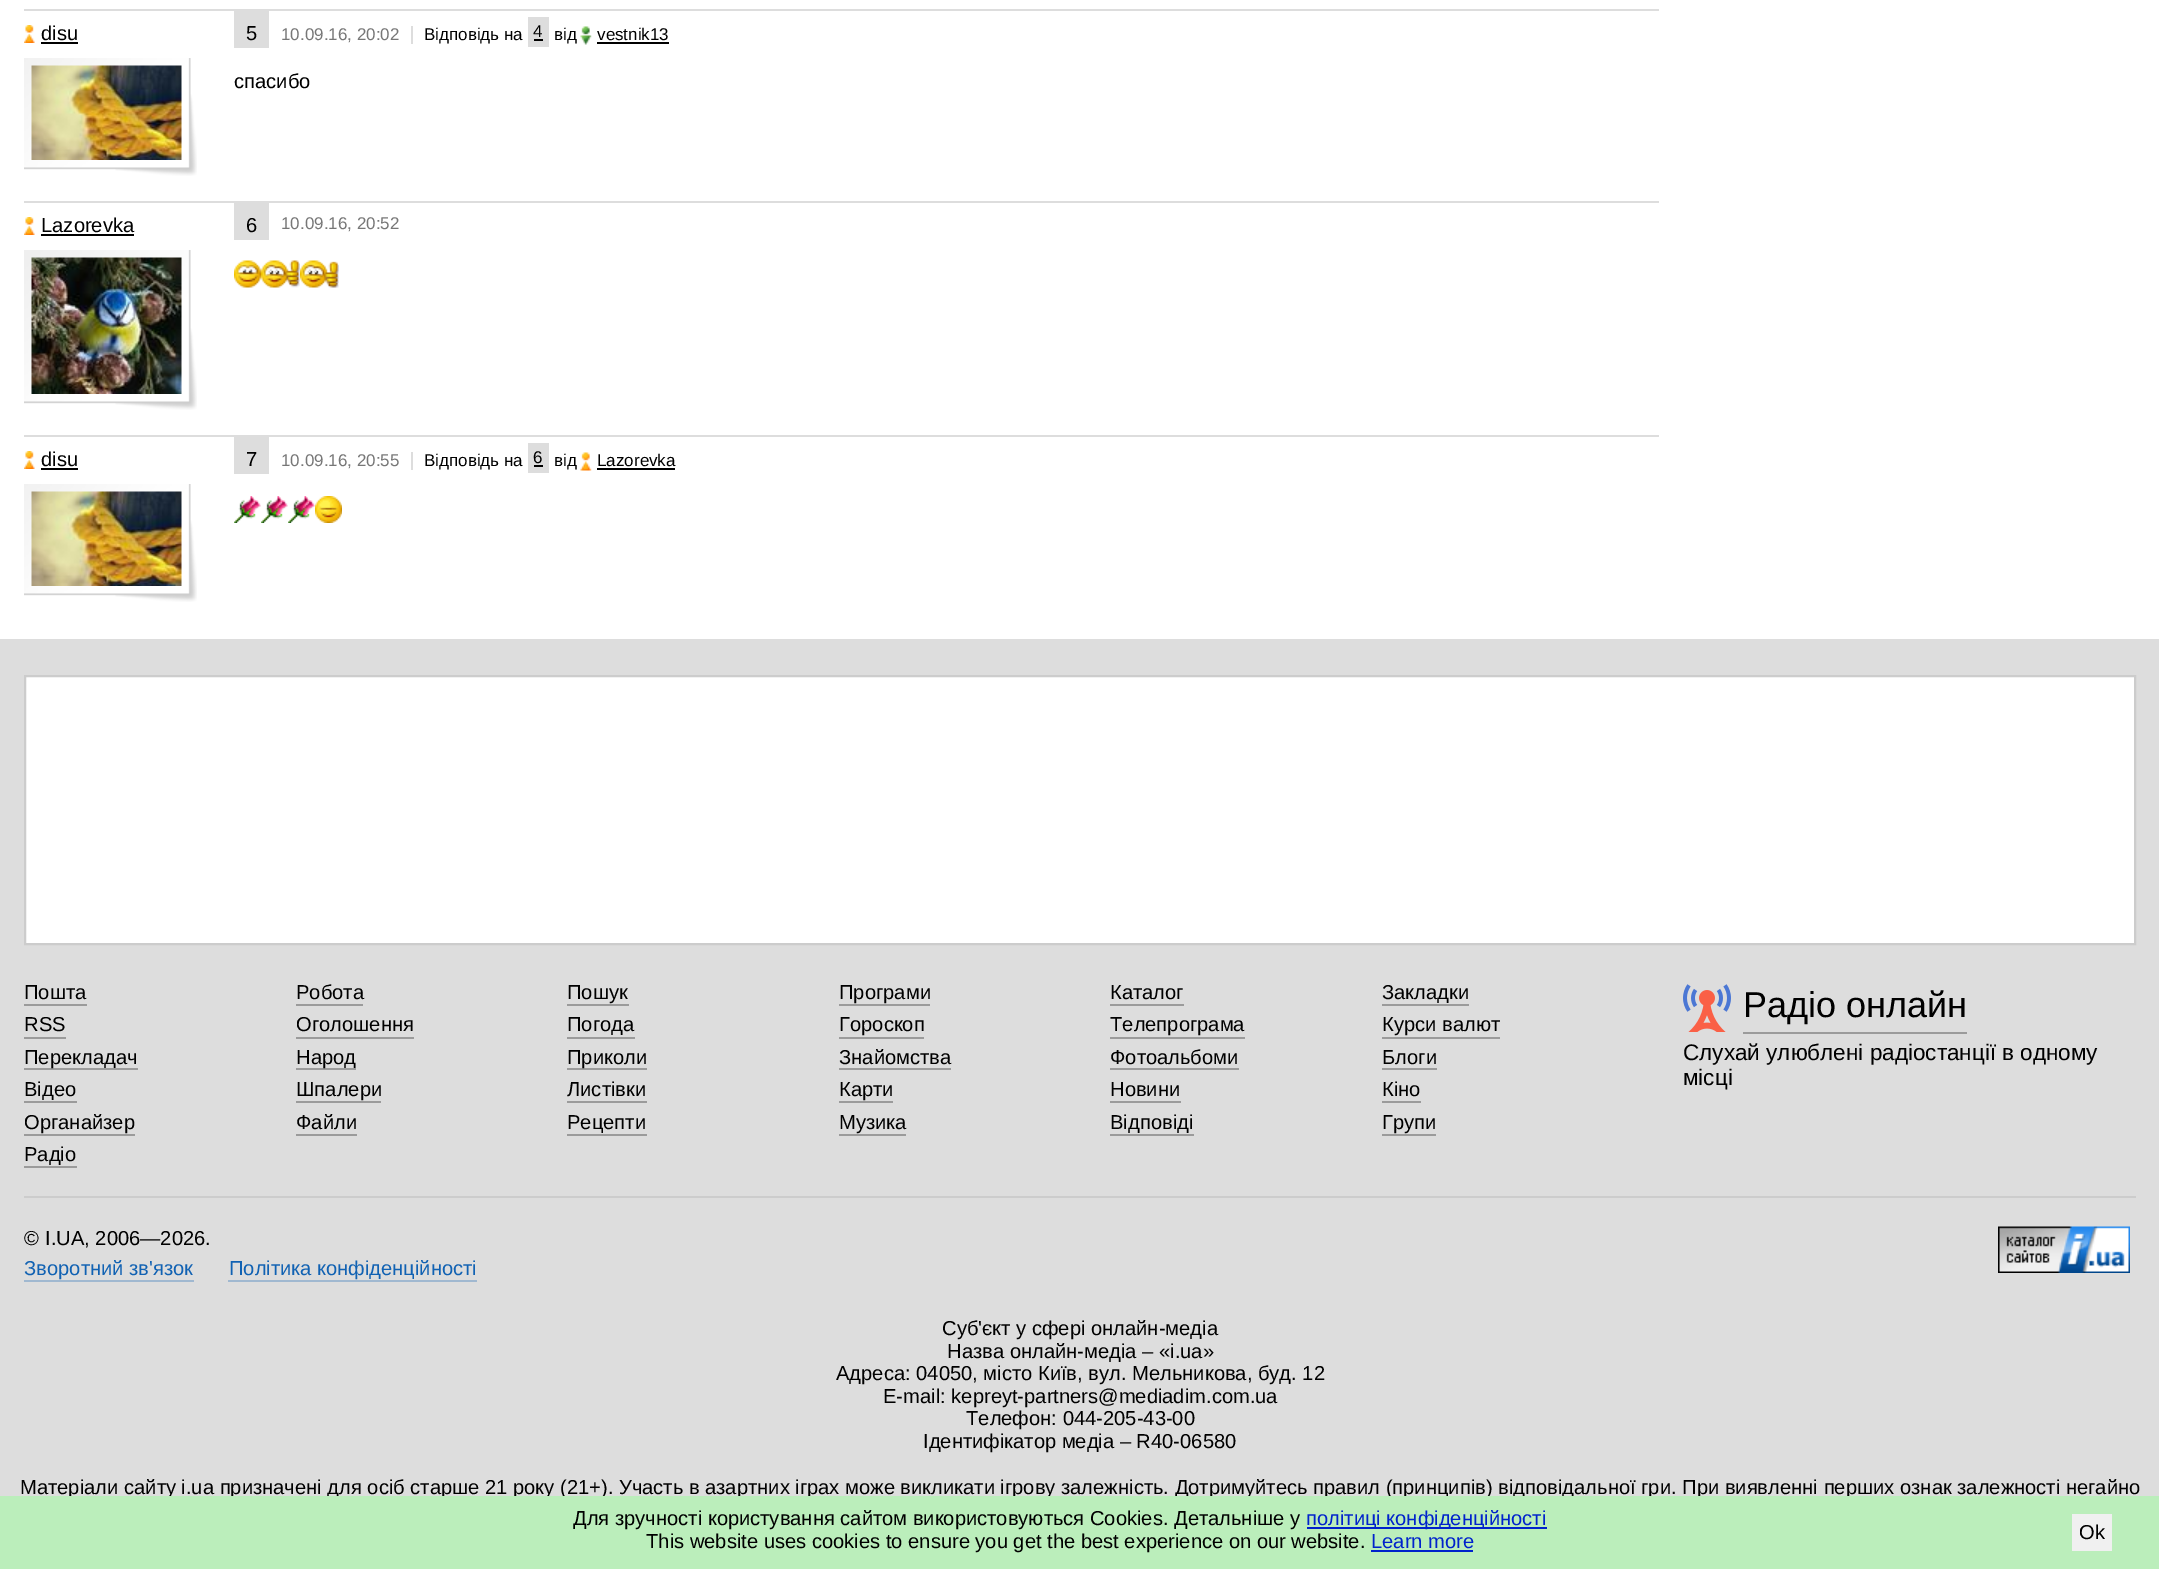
%!PS-Adobe-3.0
%%BoundingBox: 0 0 2159 1569
%%LanguageLevel: 3
%%Pages: 1
%%EndComments
%%BeginProlog
/setink { 3 { 255 div 3 1 roll } repeat setrgbcolor } def
/usefont { [ exch dup neg 0 0 3 -1 roll 0 0 ] selectfont } def
/drawtext { setink usefont moveto show } def
/fillbox { setink rectfill } def
/drawimage { 5 dict begin { /h /w /y /x /name } { exch def } forall
  gsave x y translate w h scale
  w h 8 [w 0 0 h 0 0] name (r) file false 3 colorimage grestore end } def
%%EndProlog
%%BeginSetup
<< /PageSize [2159 1569] >> setpagedevice
%%EndSetup
%%Page: 1 1
0 1569 translate 1 -1 scale
4 setmiterlimit
0 0 2159 1569 255 255 255 fillbox
24 9 1635 2 221 221 221 fillbox
(assets/img1.rgb) 24 25 11 18 drawimage
(disu) 41 40 /LiberationSans-Regular 20.16 0 0 0 drawtext
41 42 37 2 0 0 0 fillbox
(assets/img2.rgb) 24 58 173 118 drawimage
(assets/img3.rgb) 31 65 151 95 drawimage
234 11 35 37 221 221 221 fillbox
(5) 246 40 /LiberationSans-Regular 20.16 0 0 0 drawtext
(10.09.16, 20:02) 281 40 /LiberationSans-Regular 17 119 119 119 drawtext
411 26 2 18 221 221 221 fillbox
(Відповідь на) 424 40 /LiberationSans-Regular 17 0 0 0 drawtext
528 17 21 30 221 221 221 fillbox
(4) 533 37 /LiberationSans-Regular 17 0 0 0 drawtext
534 39 9 2 0 0 0 fillbox
(від) 554 40 /LiberationSans-Regular 17 0 0 0 drawtext
(assets/img4.rgb) 580 26 12 19 drawimage
(vestnik13) 597 40 /LiberationSans-Regular 17 0 0 0 drawtext
597 42 72 2 0 0 0 fillbox
(спасибо) 234 88 /LiberationSans-Regular 20.16 0 0 0 drawtext
24 201 1635 2 221 221 221 fillbox
(assets/img1.rgb) 24 217 11 18 drawimage
(Lazorevka) 41 232 /LiberationSans-Regular 20.16 0 0 0 drawtext
41 234 93 2 0 0 0 fillbox
(assets/img5.rgb) 24 250 173 160 drawimage
(assets/img6.rgb) 31 257 151 137 drawimage
234 203 35 37 221 221 221 fillbox
(6) 246 232 /LiberationSans-Regular 20.16 0 0 0 drawtext
(10.09.16, 20:52) 281 229 /LiberationSans-Regular 17 119 119 119 drawtext
(assets/img7.rgb) 234 260 27 28 drawimage
(assets/img8.rgb) 261 260 39 28 drawimage
(assets/img9.rgb) 300 260 39 28 drawimage
24 435 1635 2 221 221 221 fillbox
(assets/img1.rgb) 24 451 11 18 drawimage
(disu) 41 466 /LiberationSans-Regular 20.16 0 0 0 drawtext
41 468 37 2 0 0 0 fillbox
(assets/img2.rgb) 24 484 173 118 drawimage
(assets/img3.rgb) 31 491 151 95 drawimage
234 437 35 37 221 221 221 fillbox
(7) 246 466 /LiberationSans-Regular 20.16 0 0 0 drawtext
(10.09.16, 20:55) 281 466 /LiberationSans-Regular 17 119 119 119 drawtext
411 452 2 18 221 221 221 fillbox
(Відповідь на) 424 466 /LiberationSans-Regular 17 0 0 0 drawtext
528 443 21 30 221 221 221 fillbox
(6) 533 463 /LiberationSans-Regular 17 0 0 0 drawtext
534 465 9 2 0 0 0 fillbox
(від) 554 466 /LiberationSans-Regular 17 0 0 0 drawtext
(assets/img10.rgb) 580 452 12 19 drawimage
(Lazorevka) 597 466 /LiberationSans-Regular 17 0 0 0 drawtext
597 468 78 2 0 0 0 fillbox
(assets/img11.rgb) 234 496 27 27 drawimage
(assets/img12.rgb) 261 496 27 27 drawimage
(assets/img13.rgb) 288 496 27 27 drawimage
(assets/img14.rgb) 315 496 27 27 drawimage
0 639 2159 857 221 221 221 fillbox
255 255 255 setink
25 676 moveto 2135 676 lineto 2135 944 lineto 25 944 lineto closepath gsave fill grestore
204 204 204 setink
2 setlinewidth
stroke
(Пошта) 24 999 /LiberationSans-Regular 20.16 0 0 0 drawtext
24 1004 63 2 155 155 155 fillbox
(Робота) 296 999 /LiberationSans-Regular 20.16 0 0 0 drawtext
296 1004 67 2 155 155 155 fillbox
(Пошук) 567 999 /LiberationSans-Regular 20.16 0 0 0 drawtext
567 1004 62 2 155 155 155 fillbox
(Програми) 839 999 /LiberationSans-Regular 20.16 0 0 0 drawtext
839 1004 91 2 155 155 155 fillbox
(Каталог) 1110 999 /LiberationSans-Regular 20.16 0 0 0 drawtext
1110 1004 74 2 155 155 155 fillbox
(Закладки) 1382 999 /LiberationSans-Regular 20.16 0 0 0 drawtext
1382 1004 87 2 155 155 155 fillbox
(RSS) 24 1031 /LiberationSans-Regular 20.16 0 0 0 drawtext
24 1037 42 2 155 155 155 fillbox
(Оголошення) 296 1031 /LiberationSans-Regular 20.16 0 0 0 drawtext
296 1037 118 2 155 155 155 fillbox
(Погода) 567 1031 /LiberationSans-Regular 20.16 0 0 0 drawtext
567 1037 68 2 155 155 155 fillbox
(Гороскоп) 839 1031 /LiberationSans-Regular 20.16 0 0 0 drawtext
839 1037 85 2 155 155 155 fillbox
(Телепрограма) 1110 1031 /LiberationSans-Regular 20.16 0 0 0 drawtext
1110 1037 135 2 155 155 155 fillbox
(Курси валют) 1382 1031 /LiberationSans-Regular 20.16 0 0 0 drawtext
1382 1037 118 2 155 155 155 fillbox
24 1068 114 2 155 155 155 fillbox
(Перекладач) 24 1064 /LiberationSans-Regular 20.16 0 0 0 drawtext
296 1068 60 2 155 155 155 fillbox
(Народ) 296 1064 /LiberationSans-Regular 20.16 0 0 0 drawtext
567 1068 80 2 155 155 155 fillbox
(Приколи) 567 1064 /LiberationSans-Regular 20.16 0 0 0 drawtext
(Знайомства) 839 1064 /LiberationSans-Regular 20.16 0 0 0 drawtext
839 1068 112 2 155 155 155 fillbox
(Фотоальбоми) 1110 1064 /LiberationSans-Regular 20.16 0 0 0 drawtext
1110 1068 129 2 155 155 155 fillbox
(Блоги) 1382 1064 /LiberationSans-Regular 20.16 0 0 0 drawtext
1382 1068 55 2 155 155 155 fillbox
(Відео) 24 1096 /LiberationSans-Regular 20.16 0 0 0 drawtext
24 1101 53 2 155 155 155 fillbox
(Шпалери) 296 1096 /LiberationSans-Regular 20.16 0 0 0 drawtext
296 1101 85 2 155 155 155 fillbox
(Листівки) 567 1096 /LiberationSans-Regular 20.16 0 0 0 drawtext
567 1101 80 2 155 155 155 fillbox
(Карти) 839 1096 /LiberationSans-Regular 20.16 0 0 0 drawtext
839 1101 54 2 155 155 155 fillbox
(Новини) 1110 1096 /LiberationSans-Regular 20.16 0 0 0 drawtext
1110 1101 71 2 155 155 155 fillbox
(Кіно) 1382 1096 /LiberationSans-Regular 20.16 0 0 0 drawtext
1382 1101 39 2 155 155 155 fillbox
(Органайзер) 24 1129 /LiberationSans-Regular 20.16 0 0 0 drawtext
24 1134 111 2 155 155 155 fillbox
(Файли) 296 1129 /LiberationSans-Regular 20.16 0 0 0 drawtext
296 1134 61 2 155 155 155 fillbox
(Рецепти) 567 1129 /LiberationSans-Regular 20.16 0 0 0 drawtext
567 1134 80 2 155 155 155 fillbox
(Музика) 839 1129 /LiberationSans-Regular 20.16 0 0 0 drawtext
839 1134 67 2 155 155 155 fillbox
(Відповіді) 1110 1129 /LiberationSans-Regular 20.16 0 0 0 drawtext
1110 1134 84 2 155 155 155 fillbox
(Групи) 1382 1129 /LiberationSans-Regular 20.16 0 0 0 drawtext
1382 1134 54 2 155 155 155 fillbox
(Радіо) 24 1161 /LiberationSans-Regular 20.16 0 0 0 drawtext
24 1166 53 2 155 155 155 fillbox
1743 1032 224 2 155 155 155 fillbox
(assets/img15.rgb) 1683 984 48 48 drawimage
(Радіо онлайн) 1743 1017 /LiberationSans-Regular 36 0 0 0 drawtext
(Слухай улюблені радіостанції в одному) 1683 1060 /LiberationSans-Regular 22.5 0 0 0 drawtext
(місці) 1683 1085 /LiberationSans-Regular 22.5 0 0 0 drawtext
24 1196 2112 2 204 204 204 fillbox
(©) 24 1245 /LiberationSans-Regular 20.16 0 0 0 drawtext
(I.UA, 2006—2026.) 45 1245 /LiberationSans-Regular 20.16 0 0 0 drawtext
(assets/img16.rgb) 1998 1226 132 47 drawimage
(Зворотний зв'язок) 24 1275 /LiberationSans-Regular 20.16 17 98 179 drawtext
24 1280 170 2 160 184 208 fillbox
(Політика конфіденційності) 229 1275 /LiberationSans-Regular 20.16 17 98 179 drawtext
228 1280 249 2 160 184 208 fillbox
(Суб'єкт у сфері онлайн-медіа) 942 1335 /LiberationSans-Regular 20.16 0 0 0 drawtext
(Назва онлайн-медіа – «i.ua») 947 1358 /LiberationSans-Regular 20.16 0 0 0 drawtext
(Адреса: 04050, місто Київ, вул. Мельникова, буд. 12) 836 1380 /LiberationSans-Regular 20.16 0 0 0 drawtext
(E-mail: kepreyt-partners@mediadim.com.ua) 883 1403 /LiberationSans-Regular 20.16 0 0 0 drawtext
(Телефон: 044-205-43-00) 966 1425 /LiberationSans-Regular 20.16 0 0 0 drawtext
(Ідентифікатор медіа – R40-06580) 923 1448 /LiberationSans-Regular 20.16 0 0 0 drawtext
(Матеріали сайту i.ua призначені для осіб старше 21 року \(21+\). Участь в азартних іграх може викликати ігрову залежність. Дотримуйтесь правил \(принципів\) відповідальної гри. При виявленні перших ознак залежності негайно) 20 1494 /LiberationSans-Regular 20.16 0 0 0 drawtext
0 1496 2159 73 187 238 187 fillbox
(Для зручності користування сайтом використовуються Cookies. Детальніше у) 573 1525 /LiberationSans-Regular 20.16 0 0 0 drawtext
1307 1527 240 2 0 34 204 fillbox
(політиці конфіденційності) 1306 1525 /LiberationSans-Regular 20.16 0 34 204 drawtext
(This website uses cookies to ensure you get the best experience on our website.) 646 1548 /LiberationSans-Regular 20.16 0 0 0 drawtext
(Learn more) 1371 1548 /LiberationSans-Regular 20.16 0 34 204 drawtext
1371 1550 102 2 0 34 204 fillbox
2072 1514 40 37 240 240 240 fillbox
(Ok) 2079 1539 /LiberationSans-Regular 20.16 0 0 0 drawtext
showpage
%%EOF
